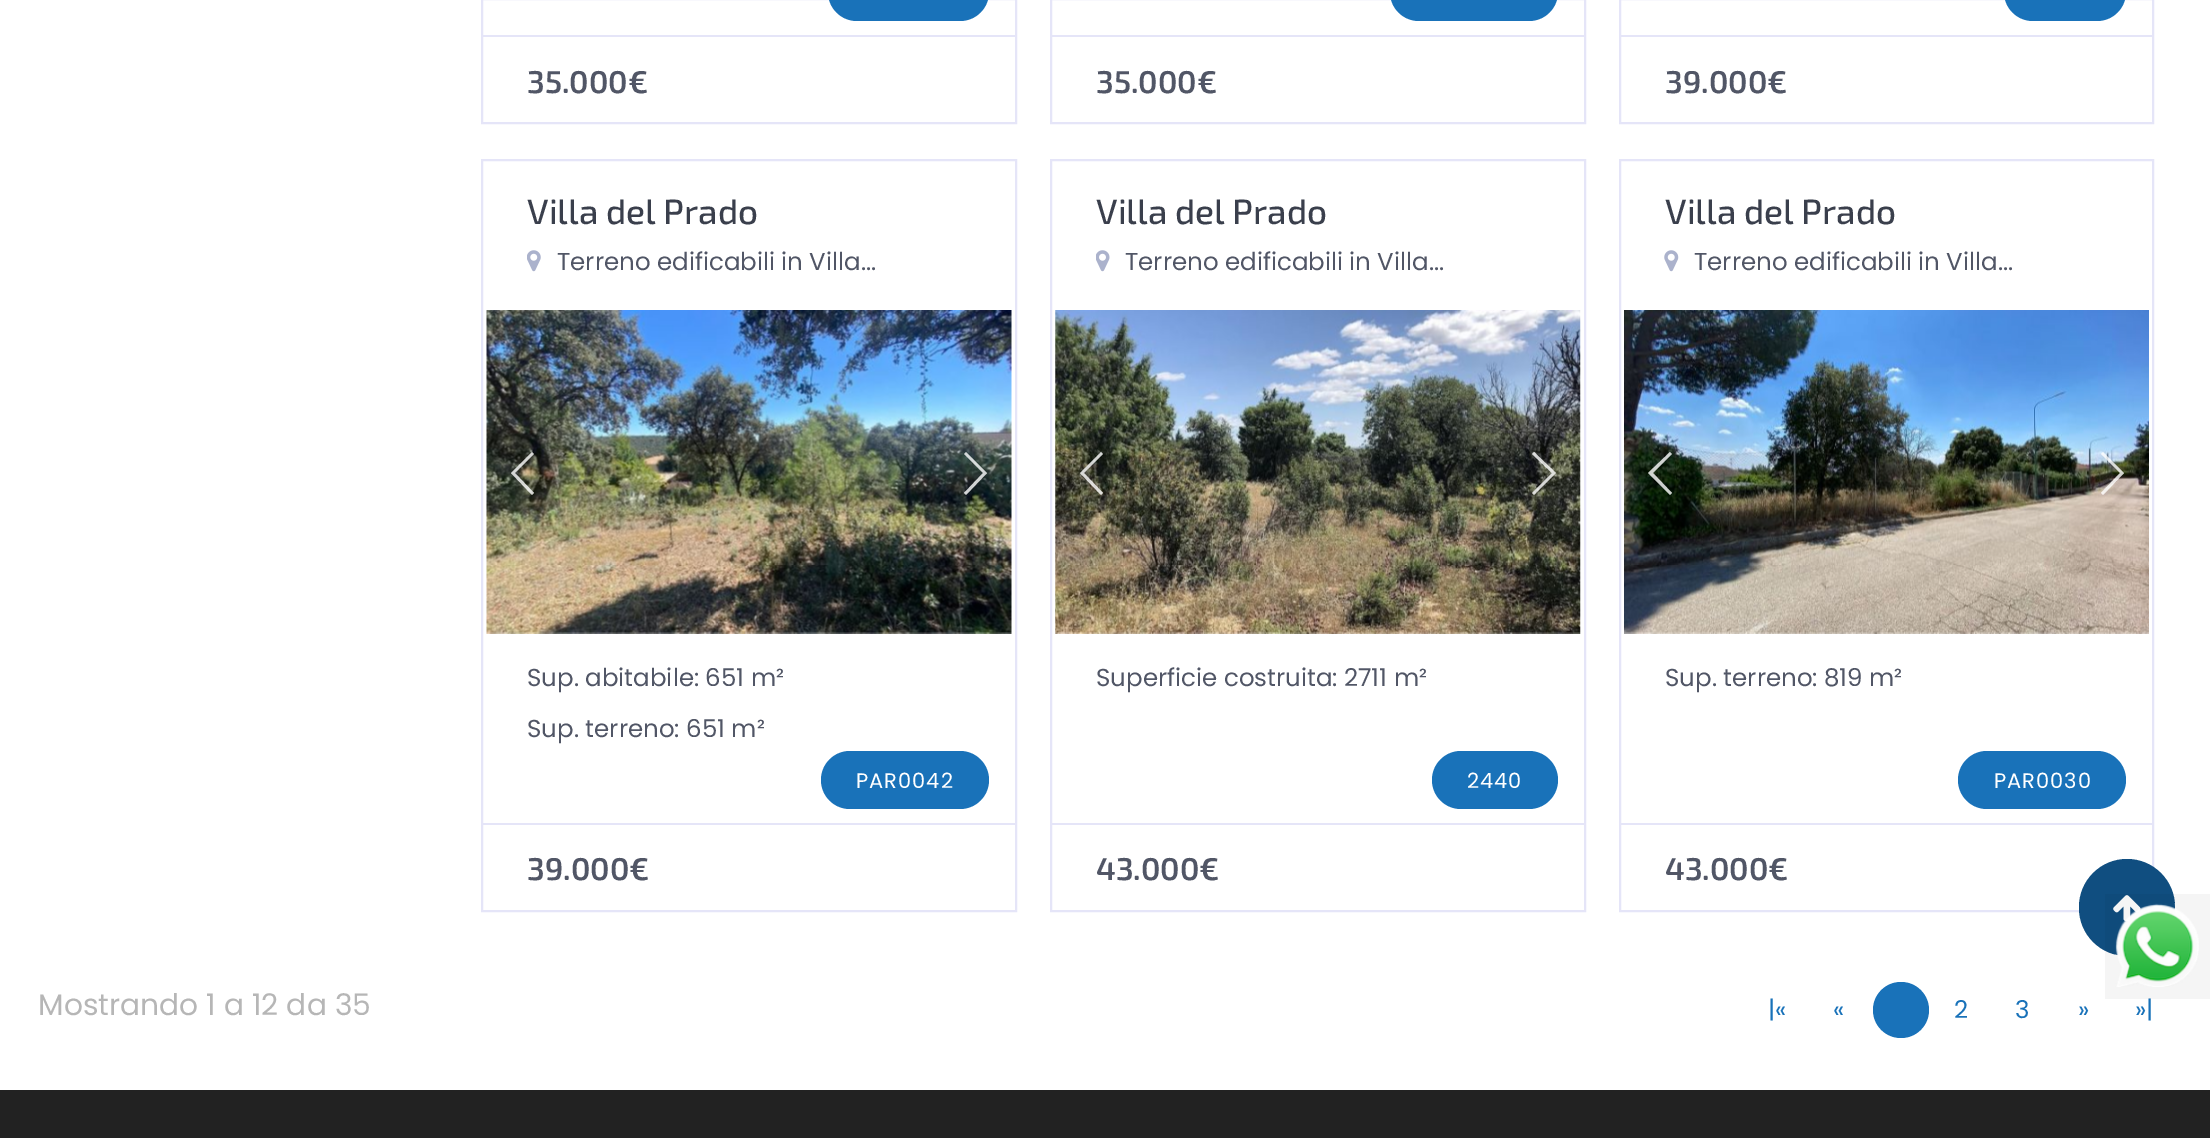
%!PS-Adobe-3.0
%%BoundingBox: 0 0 2210 1138
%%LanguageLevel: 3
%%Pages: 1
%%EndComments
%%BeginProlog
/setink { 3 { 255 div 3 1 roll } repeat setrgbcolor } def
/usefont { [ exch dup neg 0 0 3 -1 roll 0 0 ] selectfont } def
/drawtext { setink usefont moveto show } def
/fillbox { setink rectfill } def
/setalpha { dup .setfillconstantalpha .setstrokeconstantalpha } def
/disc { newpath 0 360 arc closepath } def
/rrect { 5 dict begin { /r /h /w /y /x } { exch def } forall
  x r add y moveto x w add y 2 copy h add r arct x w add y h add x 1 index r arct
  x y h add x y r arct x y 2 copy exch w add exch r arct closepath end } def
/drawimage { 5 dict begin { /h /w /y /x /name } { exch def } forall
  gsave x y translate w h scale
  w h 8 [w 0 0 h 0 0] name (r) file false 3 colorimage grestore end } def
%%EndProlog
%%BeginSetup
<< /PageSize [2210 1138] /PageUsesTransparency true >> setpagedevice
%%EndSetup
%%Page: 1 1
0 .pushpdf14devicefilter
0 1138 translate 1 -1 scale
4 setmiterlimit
0 0 2210 1138 255 255 255 fillbox
229 229 248 setink
2 setlinewidth
482 -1 534 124 rectstroke
25 114 185 setink
828 -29 161 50 29 rrect fill
483 35 532 2 229 229 248 fillbox
(35.000€) 527 93 /Exo2-SemiBold 31.5 81 86 102 drawtext
229 229 248 setink
1051 -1 534 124 rectstroke
25 114 185 setink
1390 -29 168 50 29 rrect fill
1052 35 532 2 229 229 248 fillbox
(35.000€) 1096 93 /Exo2-SemiBold 31.5 81 86 102 drawtext
229 229 248 setink
1620 -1 533 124 rectstroke
25 114 185 setink
2004 -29 122 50 29 rrect fill
1621 35 532 2 229 229 248 fillbox
(39.000€) 1665 93 /Exo2-SemiBold 31.5 81 86 102 drawtext
229 229 248 setink
482 160 534 751 rectstroke
(Villa del Prado) 527 224 /Exo2-Medium 35 58 63 76 drawtext
(assets/img1.rgb) 527 250 14 22 drawimage
(Terreno edificabili in Villa...) 557 270 /Poppins-Regular 24.5 81 86 102 drawtext
(Sup. abitabile: 651 m²) 527 686 /Poppins-Regular 24.5 81 86 102 drawtext
(Sup. terreno: 651 m²) 527 737 /Poppins-Regular 24.5 81 86 102 drawtext
483 823 532 2 229 229 248 fillbox
(39.000€) 527 880 /Exo2-SemiBold 31.5 81 86 102 drawtext
(assets/img2.rgb) 486 310 526 324 drawimage
0.8 setalpha
255 255 255 setink
511 473 moveto 532 452 lineto 534 454 lineto 515 473 lineto 534 493 lineto 532 495 lineto closepath fill
987 473 moveto 966 495 lineto 964 493 lineto 983 473 lineto 964 454 lineto 966 452 lineto closepath fill
1 setalpha
25 114 185 setink
821 751 168 58 29 rrect fill
/Poppins-Regular 21 usefont
255 255 255 setink
856 788 moveto 1 0 (PAR0042) ashow
229 229 248 setink
1051 160 534 751 rectstroke
(Villa del Prado) 1096 224 /Exo2-Medium 35 58 63 76 drawtext
(assets/img3.rgb) 1096 250 14 22 drawimage
(Terreno edificabili in Villa...) 1125 270 /Poppins-Regular 24.5 81 86 102 drawtext
(Superficie costruita: 2711 m²) 1096 686 /Poppins-Regular 24.5 81 86 102 drawtext
1052 823 532 2 229 229 248 fillbox
(43.000€) 1096 880 /Exo2-SemiBold 31.5 81 86 102 drawtext
(assets/img4.rgb) 1055 310 526 324 drawimage
0.8 setalpha
255 255 255 setink
1080 473 moveto 1101 452 lineto 1103 454 lineto 1084 473 lineto 1103 493 lineto 1101 495 lineto closepath fill
1556 473 moveto 1534 495 lineto 1532 493 lineto 1552 473 lineto 1532 454 lineto 1534 452 lineto closepath fill
1 setalpha
25 114 185 setink
1432 751 126 58 29 rrect fill
/Poppins-Regular 21 usefont
255 255 255 setink
1467 788 moveto 1 0 (2440) ashow
229 229 248 setink
1620 160 533 751 rectstroke
(Villa del Prado) 1665 224 /Exo2-Medium 35 58 63 76 drawtext
(assets/img5.rgb) 1664 250 15 22 drawimage
(Terreno edificabili in Villa...) 1694 270 /Poppins-Regular 24.5 81 86 102 drawtext
(Sup. terreno: 819 m²) 1665 686 /Poppins-Regular 24.5 81 86 102 drawtext
1621 823 532 2 229 229 248 fillbox
(43.000€) 1665 880 /Exo2-SemiBold 31.5 81 86 102 drawtext
(assets/img6.rgb) 1624 310 525 324 drawimage
0.8 setalpha
255 255 255 setink
1648 473 moveto 1670 452 lineto 1672 454 lineto 1653 473 lineto 1672 493 lineto 1670 495 lineto closepath fill
2124 473 moveto 2103 495 lineto 2101 493 lineto 2120 473 lineto 2101 454 lineto 2103 452 lineto closepath fill
1 setalpha
25 114 185 setink
1958 751 168 58 29 rrect fill
/Poppins-Regular 21 usefont
255 255 255 setink
1994 788 moveto 1 0 (PAR0030) ashow
(Mostrando 1 a 12 da 35) 38 1015 /Poppins-Regular 29.75 182 182 182 drawtext
(|«) 1768 1018 /Poppins-Regular 24.5 25 114 185 drawtext
(«) 1833 1018 /Poppins-Regular 24.5 25 114 185 drawtext
1901 1010 28 disc fill
(2) 1954 1018 /Poppins-Regular 24.5 25 114 185 drawtext
(3) 2015 1018 /Poppins-Regular 24.5 25 114 185 drawtext
(») 2078 1018 /Poppins-Regular 24.5 25 114 185 drawtext
(»|) 2135 1018 /Poppins-Regular 24.5 25 114 185 drawtext
0 1090 2210 48 34 34 34 fillbox
16 78 128 setink
2079 859 96 97 48 rrect fill
(assets/img7.rgb) 2113 895 28 26 drawimage
0.04 setalpha
2105 894 105 105 0 0 0 fillbox
1 setalpha
(assets/img8.rgb) 2115 903 84 84 drawimage
.poppdf14devicefilter showpage
%%EOF
